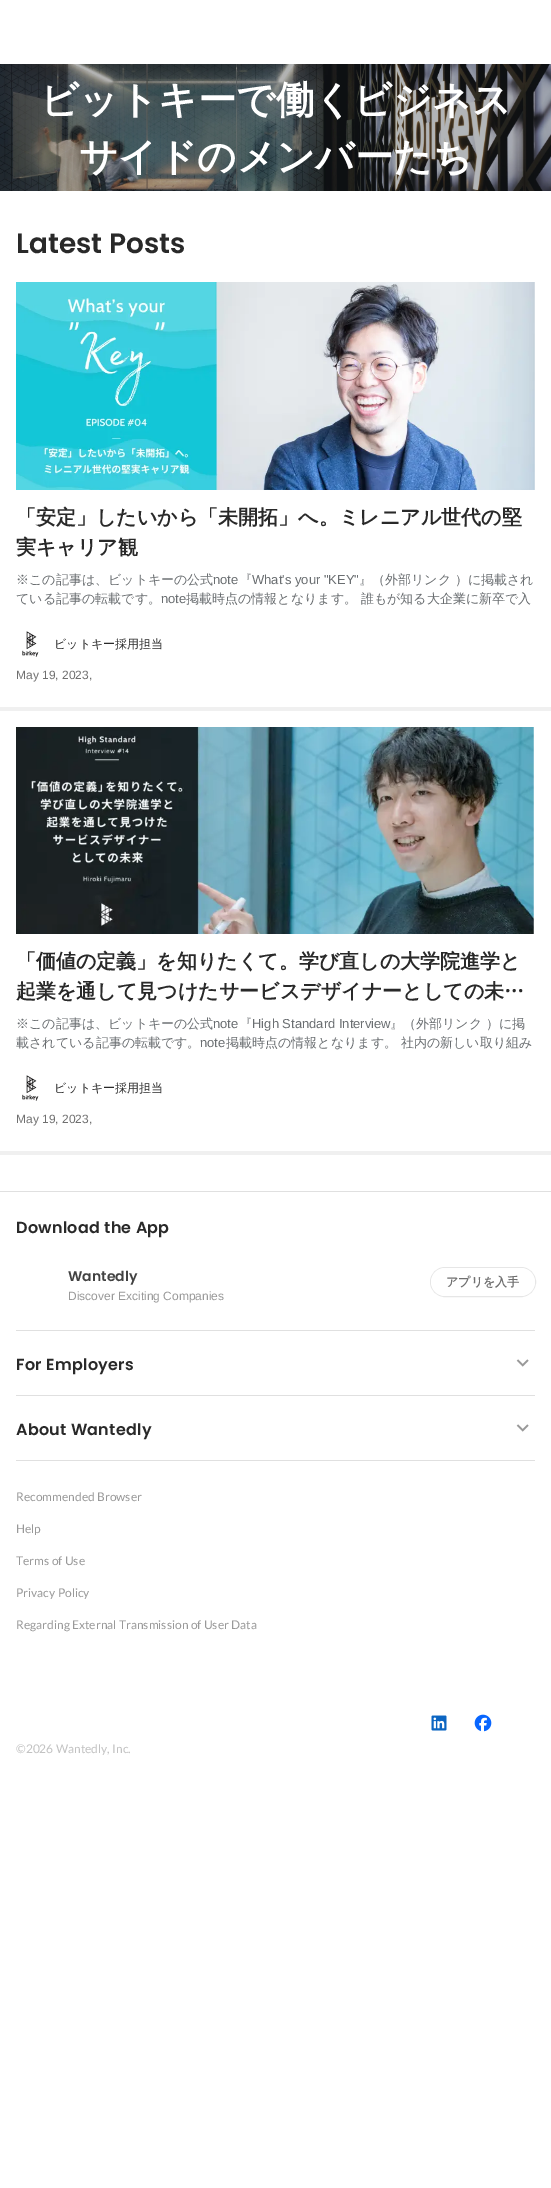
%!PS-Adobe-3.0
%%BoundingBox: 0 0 551 2188
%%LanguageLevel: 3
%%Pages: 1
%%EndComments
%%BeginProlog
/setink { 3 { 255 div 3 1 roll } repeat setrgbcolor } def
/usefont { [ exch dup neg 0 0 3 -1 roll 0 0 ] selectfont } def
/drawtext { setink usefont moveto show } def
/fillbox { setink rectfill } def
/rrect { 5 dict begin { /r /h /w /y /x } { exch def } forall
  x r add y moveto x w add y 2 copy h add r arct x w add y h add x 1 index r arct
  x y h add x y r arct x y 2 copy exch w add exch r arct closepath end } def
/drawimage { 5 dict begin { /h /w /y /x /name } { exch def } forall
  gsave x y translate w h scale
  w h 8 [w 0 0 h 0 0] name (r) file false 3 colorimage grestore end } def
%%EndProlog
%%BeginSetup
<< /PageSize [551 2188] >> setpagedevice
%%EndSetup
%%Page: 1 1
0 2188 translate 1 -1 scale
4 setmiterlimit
0 0 551 2188 255 255 255 fillbox
(assets/img1.rgb) 0 64 551 127 drawimage
(ビットキーで働くビジネス) 40 113 /WenQuanYiZenHei-Bold 38.5 255 255 255 drawtext
(サイドのメンバーたち) 79 170 /WenQuanYiZenHei-Bold 38.5 255 255 255 drawtext
(Latest Posts) 16 253 /Poppins-SemiBold 28 41 41 41 drawtext
0 707 551 4 240 240 240 fillbox
(assets/img2.rgb) 16 282 519 208 drawimage
(「安定」したいから「未開拓」へ。ミレニアル世代の堅) 16 524 /WenQuanYiZenHei-Bold 20 41 41 41 drawtext
(実キャリア観) 16 554 /WenQuanYiZenHei-Bold 20 41 41 41 drawtext
(※この記事は、ビットキーの公式) 16 584 /WenQuanYiZenHei-Medium 13 106 110 113 drawtext
(note) 213 584 /LiberationSans-Regular 13 106 110 113 drawtext
(『) 239 584 /WenQuanYiZenHei-Medium 13 106 110 113 drawtext
(What's your "KEY") 252 584 /LiberationSans-Regular 13 106 110 113 drawtext
(』（外部リンク ）に掲載され) 359 584 /WenQuanYiZenHei-Medium 13 106 110 113 drawtext
(ている記事の転載です。) 16 603 /WenQuanYiZenHei-Medium 13 106 110 113 drawtext
(note) 161 603 /LiberationSans-Regular 13 106 110 113 drawtext
(掲載時点の情報となります。 誰もが知る大企業に新卒で入) 186 603 /WenQuanYiZenHei-Medium 13 106 110 113 drawtext
(assets/img3.rgb) 22 631 17 26 drawimage
(ビットキー採用担当) 54 648 /WenQuanYiZenHei-Medium 12 41 41 41 drawtext
(May 19, 2023,) 16 679 /LiberationSans-Regular 12 112 112 112 drawtext
0 1151 551 4 240 240 240 fillbox
(assets/img4.rgb) 16 727 518 207 drawimage
(「価値の定義」を知りたくて。学び直しの大学院進学と) 16 968 /WenQuanYiZenHei-Bold 20 41 41 41 drawtext
(起業を通して見つけたサービスデザイナーとしての未…) 16 998 /WenQuanYiZenHei-Bold 20 41 41 41 drawtext
(※この記事は、ビットキーの公式) 16 1028 /WenQuanYiZenHei-Medium 13 106 110 113 drawtext
(note) 213 1028 /LiberationSans-Regular 13 106 110 113 drawtext
(『) 239 1028 /WenQuanYiZenHei-Medium 13 106 110 113 drawtext
(High Standard Interview) 252 1028 /LiberationSans-Regular 13 106 110 113 drawtext
(』（外部リンク ）に掲) 390 1028 /WenQuanYiZenHei-Medium 13 106 110 113 drawtext
(載されている記事の転載です。) 16 1047 /WenQuanYiZenHei-Medium 13 106 110 113 drawtext
(note) 200 1047 /LiberationSans-Regular 13 106 110 113 drawtext
(掲載時点の情報となります。 社内の新しい取り組み) 226 1047 /WenQuanYiZenHei-Medium 13 106 110 113 drawtext
(assets/img3.rgb) 22 1075 17 26 drawimage
(ビットキー採用担当) 54 1092 /WenQuanYiZenHei-Medium 12 41 41 41 drawtext
(May 19, 2023,) 16 1123 /LiberationSans-Regular 12 112 112 112 drawtext
0 1191 551 1 224 224 224 fillbox
/Poppins-SemiBold 16 usefont
41 41 41 setink
16 1233 moveto 0.25 0 (Download the App) ashow
(Wantedly) 68 1281 /Poppins-SemiBold 14 66 66 66 drawtext
(Discover Exciting Companies) 68 1300 /LiberationSans-Regular 12 153 153 153 drawtext
230 230 230 setink
430.5 1267.5 105 29 14.5 rrect stroke
255 255 255 setink
431 1268 104 28 14 rrect fill
(アプリを入手) 446 1286 /WenQuanYiZenHei-Bold 12 112 112 112 drawtext
16 1330 519 1 224 224 224 fillbox
/Poppins-SemiBold 16 usefont
41 41 41 setink
16 1370 moveto 0.25 0 (For Employers) ashow
(assets/img5.rgb) 516 1359 13 8 drawimage
16 1395 519 1 224 224 224 fillbox
41 41 41 setink
16 1435 moveto 0.25 0 (About Wantedly) ashow
(assets/img5.rgb) 516 1424 13 8 drawimage
16 1460 519 1 224 224 224 fillbox
(Recommended Browser) 16 1501 /Lato-Regular 12 153 153 153 drawtext
(Help) 16 1533 /Lato-Regular 12 153 153 153 drawtext
(Terms of Use) 16 1565 /Lato-Regular 12 153 153 153 drawtext
(Privacy Policy) 16 1597 /Lato-Regular 12 153 153 153 drawtext
(Regarding External Transmission of User Data) 16 1629 /Lato-Regular 12 153 153 153 drawtext
(assets/img6.rgb) 431 1715 16 16 drawimage
(assets/img7.rgb) 474 1714 18 18 drawimage
(©2026 Wantedly, Inc.) 16 1753 /Lato-Regular 12 194 194 194 drawtext
showpage
%%EOF
